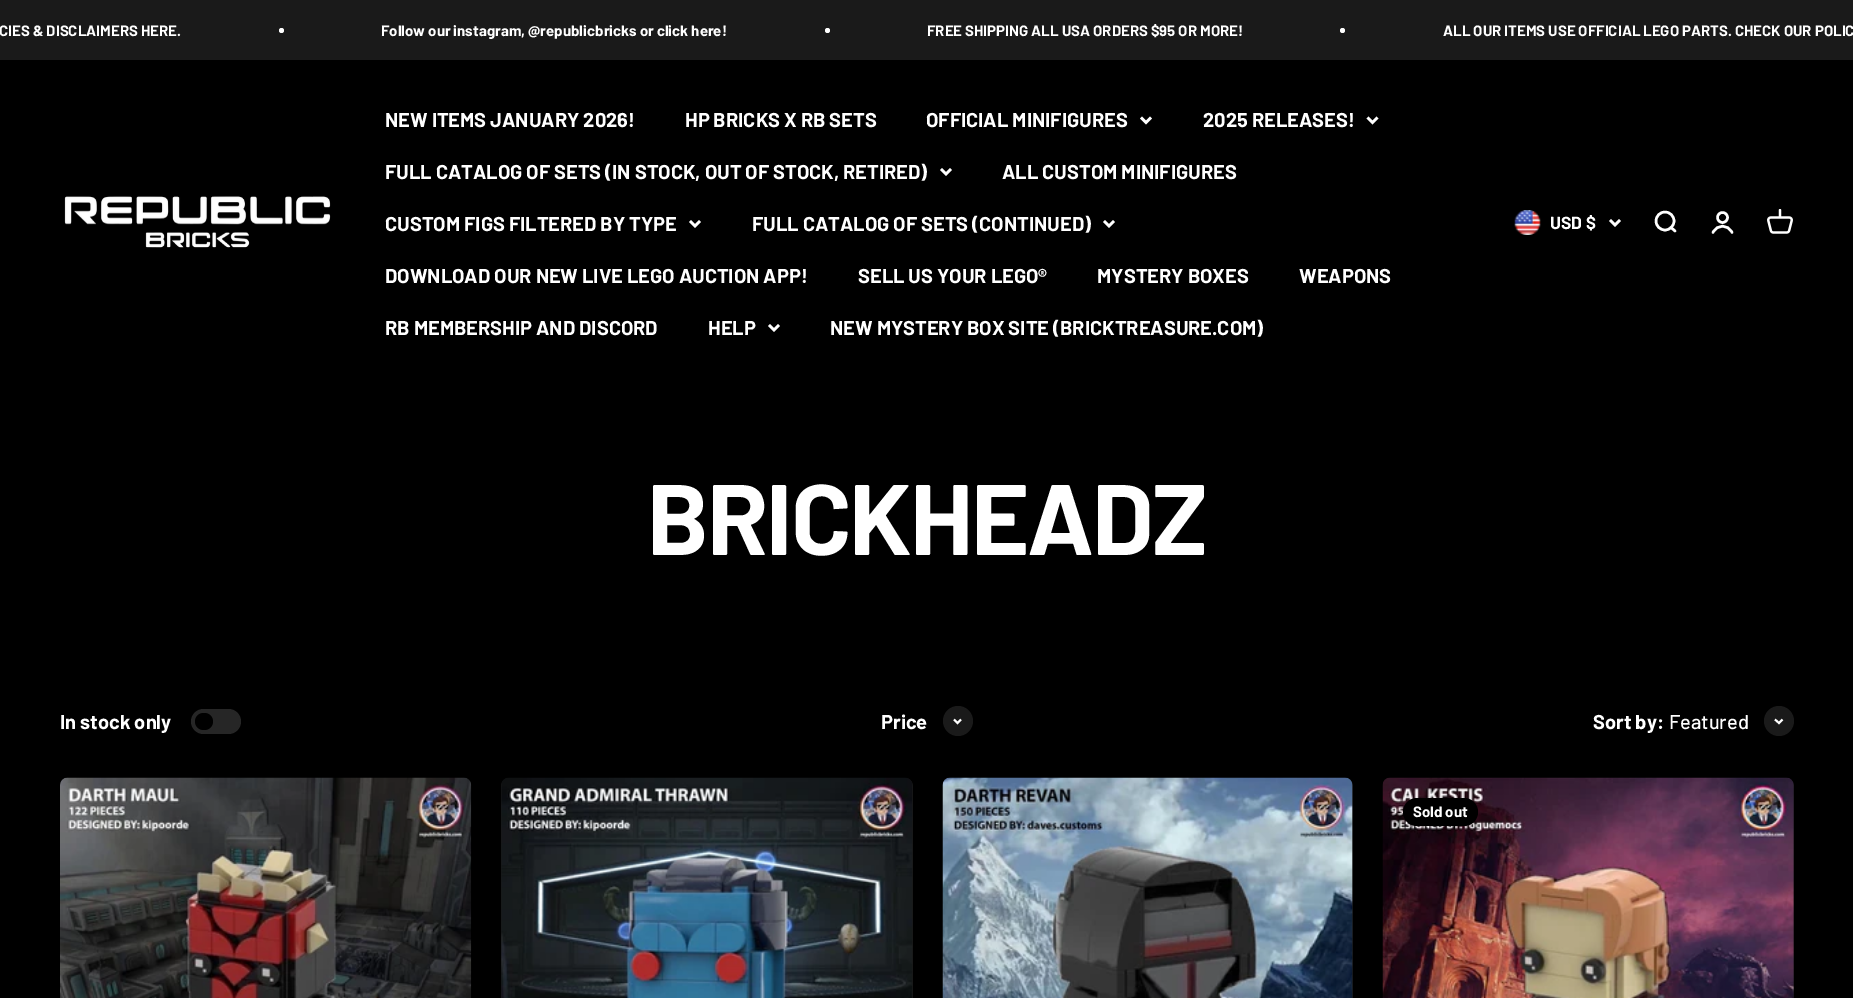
%!PS-Adobe-3.0
%%BoundingBox: 0 0 1853 998
%%LanguageLevel: 3
%%Pages: 1
%%EndComments
%%BeginProlog
/setink { 3 { 255 div 3 1 roll } repeat setrgbcolor } def
/usefont { [ exch dup neg 0 0 3 -1 roll 0 0 ] selectfont } def
/drawtext { setink usefont moveto show } def
/fillbox { setink rectfill } def
/disc { newpath 0 360 arc closepath } def
/rrect { 5 dict begin { /r /h /w /y /x } { exch def } forall
  x r add y moveto x w add y 2 copy h add r arct x w add y h add x 1 index r arct
  x y h add x y r arct x y 2 copy exch w add exch r arct closepath end } def
/drawimage { 5 dict begin { /h /w /y /x /name } { exch def } forall
  gsave x y translate w h scale
  w h 8 [w 0 0 h 0 0] name (r) file false 3 colorimage grestore end } def
%%EndProlog
%%BeginSetup
<< /PageSize [1853 998] >> setpagedevice
%%EndSetup
%%Page: 1 1
0 998 translate 1 -1 scale
4 setmiterlimit
0 0 1853 998 0 0 0 fillbox
0 0 1853 60 26 26 26 fillbox
(CIES & DISCLAIMERS HERE.) -1 36 /Barlow-Bold 15 255 255 255 drawtext
281.5 30.5 2.5 disc fill
(Follow our instagram, @republicbricks or click here!) 381 36 /Barlow-Bold 15 255 255 255 drawtext
827.5 30.5 2.5 disc fill
(FREE SHIPPING ALL USA ORDERS $95 OR MORE!) 927 36 /Barlow-Bold 15 255 255 255 drawtext
1342.5 30.5 2.5 disc fill
(ALL OUR ITEMS USE OFFICIAL LEGO PARTS. CHECK OUR POLIC) 1443 36 /Barlow-Bold 15 255 255 255 drawtext
(assets/img1.rgb) 64 196 267 52 drawimage
(NEW ITEMS JANUARY 2026!) 385 127 /Barlow-Bold 20 255 255 255 drawtext
(HP BRICKS X RB SETS) 685 127 /Barlow-Bold 20 255 255 255 drawtext
(OFFICIAL MINIFIGURES) 926 127 /Barlow-Bold 20 255 255 255 drawtext
2.5 setlinewidth
1141 117.5 moveto 1146 122.5 lineto 1151 117.5 lineto stroke
(2025 RELEASES!) 1203 127 /Barlow-Bold 20 255 255 255 drawtext
1367.5 117.5 moveto 1372.5 122.5 lineto 1377.5 117.5 lineto stroke
(FULL CATALOG OF SETS \(IN STOCK, OUT OF STOCK, RETIRED\)) 385 179 /Barlow-Bold 20 255 255 255 drawtext
941 169 moveto 946 174 lineto 951 169 lineto stroke
(ALL CUSTOM MINIFIGURES) 1002 179 /Barlow-Bold 20 255 255 255 drawtext
(CUSTOM FIGS FILTERED BY TYPE) 385 231 /Barlow-Bold 20 255 255 255 drawtext
690 221 moveto 695 226 lineto 700 221 lineto stroke
(FULL CATALOG OF SETS \(CONTINUED\)) 752 231 /Barlow-Bold 20 255 255 255 drawtext
1104 221 moveto 1109 226 lineto 1114 221 lineto stroke
(DOWNLOAD OUR NEW LIVE LEGO AUCTION APP!) 385 283 /Barlow-Bold 20 255 255 255 drawtext
(SELL US YOUR LEGO®) 858 283 /Barlow-Bold 20 255 255 255 drawtext
(MYSTERY BOXES) 1097 283 /Barlow-Bold 20 255 255 255 drawtext
(WEAPONS) 1299 283 /Barlow-Bold 20 255 255 255 drawtext
(RB MEMBERSHIP AND DISCORD) 385 335 /Barlow-Bold 20 255 255 255 drawtext
(HELP) 708 335 /Barlow-Bold 20 255 255 255 drawtext
769 325 moveto 774 330 lineto 779 325 lineto stroke
(NEW MYSTERY BOX SITE \(BRICKTREASURE.COM\)) 830 335 /Barlow-Bold 20 255 255 255 drawtext
(assets/img2.rgb) 1514 210 27 25 drawimage
(USD $) 1550 229 /Barlow-Bold 17.5 255 255 255 drawtext
1610 220 moveto 1615 225 lineto 1620 220 lineto stroke
1665 221 9 disc stroke
1 setlinecap
1 setlinejoin
1671 227.5 moveto 1675 231 lineto stroke
0 setlinecap
0 setlinejoin
1722.5 217.5 5 disc stroke
1 setlinecap
1713 232.5 moveto 1717 224 1728 224 1732 232.5 curveto stroke
(assets/img3.rgb) 1767 209 26 25 drawimage
/Barlow-Bold 100 usefont
647 555 moveto -2 0 (BRICKHEADZ) ashow
(In stock only) 60 729 /Barlow-Bold 20 255 255 255 drawtext
38 38 38 setink
191 709 50 25 12.5 rrect fill
0 0 0 setink
195 713 18 17 8.5 rrect fill
(Price) 881 729 /Barlow-Bold 20 255 255 255 drawtext
26 26 26 setink
958 721 15 disc fill
255 255 255 setink
1.9 setlinewidth
0 setlinecap
954 719.5 moveto 957.5 723 lineto 961 719.5 lineto stroke
(Sort by:) 1593 729 /Barlow-Bold 20 255 255 255 drawtext
(Featured) 1669 729 /Barlow-Medium 20 255 255 255 drawtext
26 26 26 setink
1779 721 15 disc fill
255 255 255 setink
1775 719.5 moveto 1779 723 lineto 1782.5 719.5 lineto stroke
(assets/img4.rgb) 60 777 412 221 drawimage
25 25 25 setink
501 778 412 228 8 rrect fill
(assets/img5.rgb) 501 777 412 221 drawimage
943 778 410 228 8 rrect fill
(assets/img6.rgb) 942 777 411 221 drawimage
1383 778 411 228 8 rrect fill
(assets/img7.rgb) 1382 777 412 221 drawimage
0 0 0 setink
1403 798 75 28 14 rrect fill
(Sold out) 1413 817 /Barlow-Bold 15 255 255 255 drawtext
showpage
%%EOF
